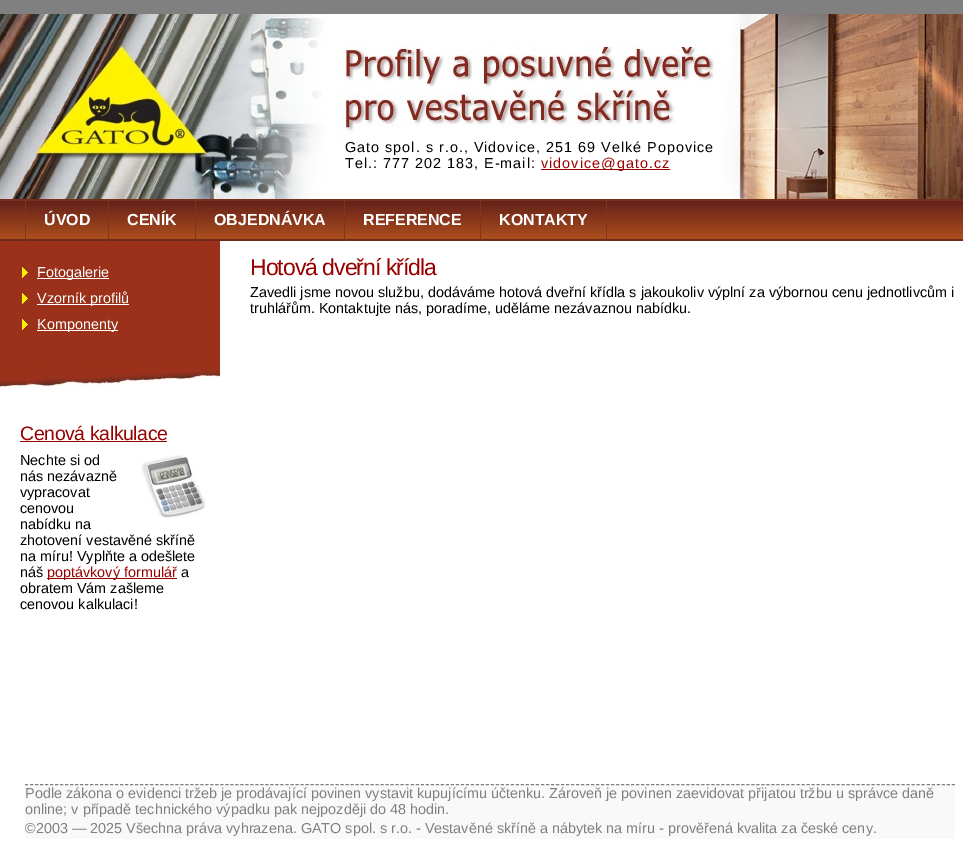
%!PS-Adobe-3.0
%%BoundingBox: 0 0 963 859
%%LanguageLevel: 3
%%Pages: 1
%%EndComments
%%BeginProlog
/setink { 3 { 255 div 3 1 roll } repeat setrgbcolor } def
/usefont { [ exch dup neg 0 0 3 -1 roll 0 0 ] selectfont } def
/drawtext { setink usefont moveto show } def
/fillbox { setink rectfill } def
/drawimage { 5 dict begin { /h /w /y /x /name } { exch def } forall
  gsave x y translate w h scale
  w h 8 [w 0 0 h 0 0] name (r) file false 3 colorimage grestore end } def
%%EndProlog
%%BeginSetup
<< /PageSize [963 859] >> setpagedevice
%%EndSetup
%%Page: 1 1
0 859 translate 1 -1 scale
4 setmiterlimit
0 0 963 859 128 128 128 fillbox
0 241 963 618 255 255 255 fillbox
(assets/img1.rgb) 0 14 963 185 drawimage
/LiberationSans-Regular 14.4 usefont
0 0 0 setink
345 152 moveto 1 0 (Gato spol. s r.o., Vidovice, 251 69 Velké Popovice) ashow
345 168 moveto 1 0 (Tel.: 777 202 183, E-mail:) ashow
541 169 129 1 153 0 0 fillbox
541 168 moveto 1 0 (vidovice@gato.cz) ashow
(assets/img2.rgb) 0 199 963 42 drawimage
108 199 1 42 129 51 27 fillbox
25 199 1 42 129 51 27 fillbox
(ÚVOD) 44 225 /LiberationSans-Bold 16 255 255 255 drawtext
195 199 1 42 129 51 27 fillbox
(CENÍK) 127 225 /LiberationSans-Bold 16 255 255 255 drawtext
344 199 1 42 129 51 27 fillbox
(OBJEDNÁVKA) 214 225 /LiberationSans-Bold 16 255 255 255 drawtext
480 199 1 42 129 51 27 fillbox
(REFERENCE) 363 225 /LiberationSans-Bold 16 255 255 255 drawtext
606 199 1 42 129 51 27 fillbox
(KONTAKTY) 499 225 /LiberationSans-Bold 16 255 255 255 drawtext
0 241 220 121 155 49 27 fillbox
(assets/img3.rgb) 22 267 6 11 drawimage
37 278 72 1 255 255 255 fillbox
(Fotogalerie) 37 277 /LiberationSans-Regular 14.4 255 255 255 drawtext
(assets/img3.rgb) 22 293 6 11 drawimage
37 304 92 1 255 255 255 fillbox
(Vzorník profilů) 37 303 /LiberationSans-Regular 14.4 255 255 255 drawtext
(assets/img3.rgb) 22 319 6 11 drawimage
37 330 81 1 255 255 255 fillbox
(Komponenty) 37 329 /LiberationSans-Regular 14.4 255 255 255 drawtext
(assets/img4.rgb) 0 362 220 28 drawimage
/LiberationSans-Regular 19.5 usefont
153 0 0 setink
20 440 moveto -0.4 0 (Cenová kalkulace) ashow
20 441 147 1 153 0 0 fillbox
(Nechte si od) 20 465 /LiberationSans-Regular 14.4 0 0 0 drawtext
(assets/img5.rgb) 141 454 65 64 drawimage
(nás nezávazně) 20 481 /LiberationSans-Regular 14.4 0 0 0 drawtext
(vypracovat) 20 497 /LiberationSans-Regular 14.4 0 0 0 drawtext
(cenovou) 20 513 /LiberationSans-Regular 14.4 0 0 0 drawtext
(nabídku na) 20 529 /LiberationSans-Regular 14.4 0 0 0 drawtext
(zhotovení vestavěné skříně) 20 545 /LiberationSans-Regular 14.4 0 0 0 drawtext
(na míru! Vyplňte a odešlete) 20 561 /LiberationSans-Regular 14.4 0 0 0 drawtext
(náš) 20 577 /LiberationSans-Regular 14.4 0 0 0 drawtext
47 578 130 1 153 0 0 fillbox
(poptávkový formulář) 47 577 /LiberationSans-Regular 14.4 153 0 0 drawtext
(a) 181 577 /LiberationSans-Regular 14.4 0 0 0 drawtext
(obratem Vám zašleme) 20 593 /LiberationSans-Regular 14.4 0 0 0 drawtext
(cenovou kalkulaci!) 20 609 /LiberationSans-Regular 14.4 0 0 0 drawtext
/LiberationSans-Regular 23 usefont
153 0 0 setink
250 275 moveto -1 0 (Hotová dveřní křídla) ashow
(Zavedli jsme novou službu, dodáváme hotová dveřní křídla s jakoukoliv výplní za výbornou cenu jednotlivcům i) 250 297 /LiberationSans-Regular 14.4 0 0 0 drawtext
(truhlářům. Kontaktujte nás, poradíme, uděláme nezávaznou nabídku.) 250 313 /LiberationSans-Regular 14.4 0 0 0 drawtext
25 784 930 55 249 249 249 fillbox
128 128 128 setink
[3 2.01] 0 setdash
25 784.5 moveto 955 784.5 lineto stroke
(Podle zákona o evidenci tržeb je prodávající povinen vystavit kupujícímu účtenku. Zároveň je povinen zaevidovat přijatou tržbu u správce daně) 25 798 /LiberationSans-Regular 14.4 128 128 128 drawtext
(online; v případě technického výpadku pak nejpozději do 48 hodin.) 25 814 /LiberationSans-Regular 14.4 128 128 128 drawtext
(©2003 — 2025 Všechna práva vyhrazena. GATO spol. s r.o. - Vestavěné skříně a nábytek na míru - prověřená kvalita za české ceny.) 25 833 /LiberationSans-Regular 14.4 128 128 128 drawtext
showpage
%%EOF
